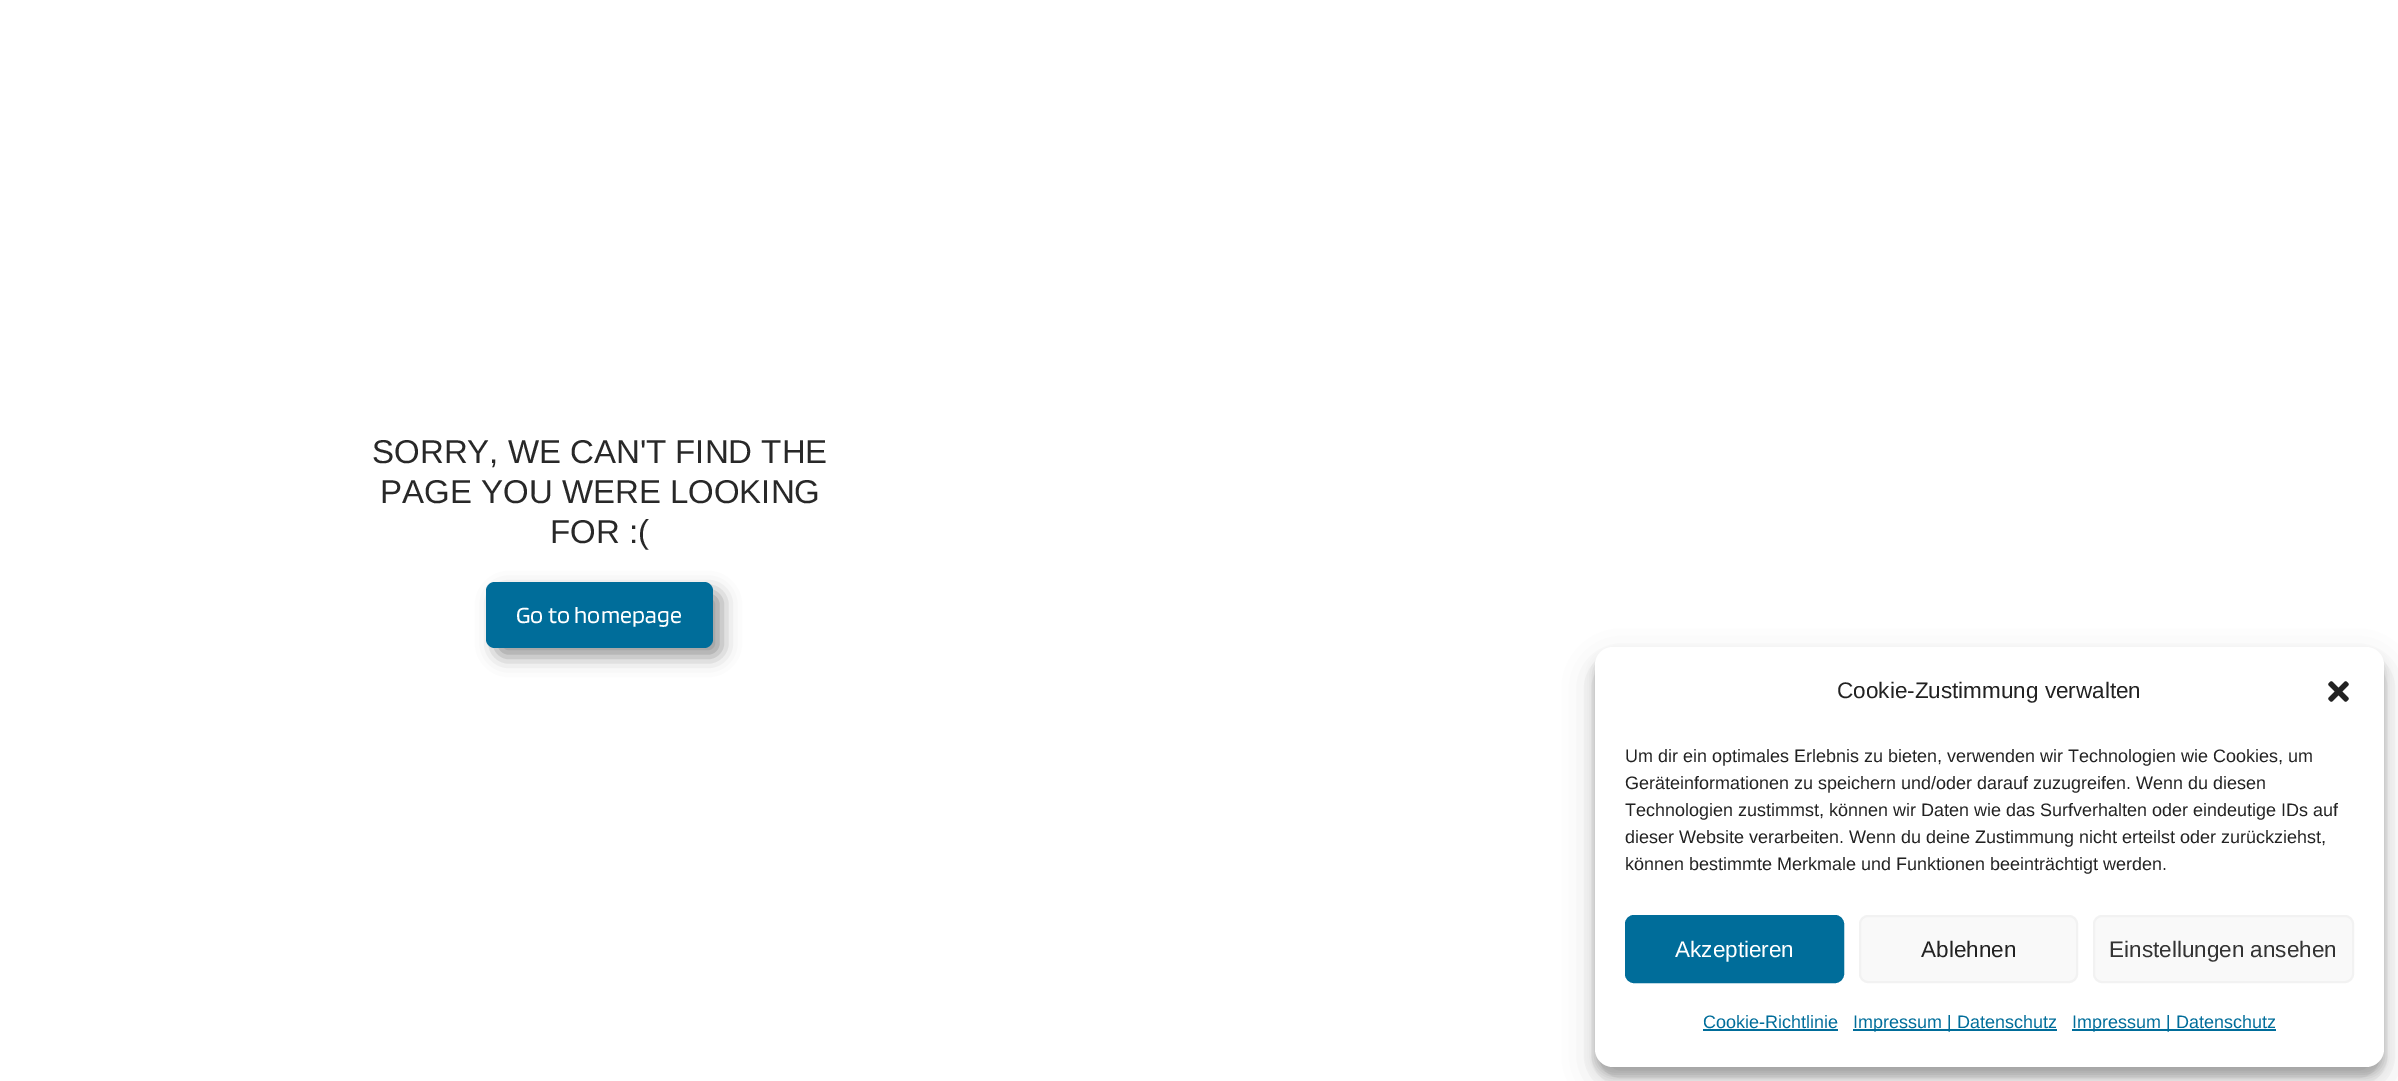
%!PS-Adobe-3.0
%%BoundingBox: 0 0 2398 1081
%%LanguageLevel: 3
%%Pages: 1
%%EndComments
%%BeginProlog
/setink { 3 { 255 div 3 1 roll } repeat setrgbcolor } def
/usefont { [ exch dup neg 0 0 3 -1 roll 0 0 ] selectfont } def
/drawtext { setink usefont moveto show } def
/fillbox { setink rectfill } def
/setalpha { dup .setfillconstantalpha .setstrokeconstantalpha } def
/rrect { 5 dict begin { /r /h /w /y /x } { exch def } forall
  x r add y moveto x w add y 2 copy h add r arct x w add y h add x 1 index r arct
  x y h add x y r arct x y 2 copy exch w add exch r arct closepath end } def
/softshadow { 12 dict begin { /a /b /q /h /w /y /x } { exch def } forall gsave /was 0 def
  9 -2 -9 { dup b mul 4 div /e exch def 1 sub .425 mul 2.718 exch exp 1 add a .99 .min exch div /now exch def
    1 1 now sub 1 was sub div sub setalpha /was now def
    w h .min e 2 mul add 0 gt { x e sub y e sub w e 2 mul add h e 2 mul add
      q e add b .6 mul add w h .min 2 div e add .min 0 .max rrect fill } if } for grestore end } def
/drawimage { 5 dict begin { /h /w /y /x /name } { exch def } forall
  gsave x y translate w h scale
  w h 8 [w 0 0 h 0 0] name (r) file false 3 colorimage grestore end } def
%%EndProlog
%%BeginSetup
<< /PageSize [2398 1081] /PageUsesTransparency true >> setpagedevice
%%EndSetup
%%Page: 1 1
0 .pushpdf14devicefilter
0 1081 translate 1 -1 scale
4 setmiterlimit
0 0 2398 1081 255 255 255 fillbox
(SORRY, WE CAN'T FIND THE) 372 463 /LiberationSans-Regular 33 40 40 40 drawtext
(PAGE YOU WERE LOOKING) 380 503 /LiberationSans-Regular 33 40 40 40 drawtext
(FOR :\() 550 543 /LiberationSans-Regular 33 40 40 40 drawtext
0 0 0 setink
495 591 227 66 9 9 0.4 softshadow
0 109 154 setink
486 582 227 66 9 rrect fill
/Blinker-Regular 24 usefont
255 255 255 setink
516 623 moveto 0.1 0 (Go to homepage) ashow
0 0 0 setink
1595 656 789 420 18 4.5 0.23 softshadow
1595 662 789 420 18 15 0.19 softshadow
255 255 255 setink
1595 647 789 420 18 rrect fill
(Cookie-Zustimmung verwalten) 1837 698 /LiberationSans-Regular 22.5 34 34 34 drawtext
(assets/img1.rgb) 2328 681 21 21 drawimage
(Um dir ein optimales Erlebnis zu bieten, verwenden wir Technologien wie Cookies, um) 1625 762 /LiberationSans-Regular 18 34 34 34 drawtext
(Geräteinformationen zu speichern und/oder darauf zuzugreifen. Wenn du diesen) 1625 789 /LiberationSans-Regular 18 34 34 34 drawtext
(Technologien zustimmst, können wir Daten wie das Surfverhalten oder eindeutige IDs auf) 1625 816 /LiberationSans-Regular 18 34 34 34 drawtext
(dieser Website verarbeiten. Wenn du deine Zustimmung nicht erteilst oder zurückziehst,) 1625 843 /LiberationSans-Regular 18 34 34 34 drawtext
(können bestimmte Merkmale und Funktionen beeinträchtigt werden.) 1625 870 /LiberationSans-Regular 18 34 34 34 drawtext
0 109 154 setink
1626 916 217 66 8 rrect gsave fill grestore
2 setlinewidth
stroke
(Akzeptieren) 1675 957 /LiberationSans-Regular 22.5 255 255 255 drawtext
249 249 249 setink
1860 916 217 66 8 rrect gsave fill grestore
242 242 242 setink
stroke
(Ablehnen) 1921 957 /LiberationSans-Regular 22.5 34 34 34 drawtext
249 249 249 setink
2094 916 259 66 8 rrect gsave fill grestore
242 242 242 setink
stroke
(Einstellungen ansehen) 2109 957 /LiberationSans-Regular 22.5 51 51 51 drawtext
(Cookie-Richtlinie) 1703 1028 /LiberationSans-Regular 18 0 109 154 drawtext
1703 1029 135 2 0 109 154 fillbox
1853 1029 204 2 0 109 154 fillbox
(Impressum | Datenschutz) 1853 1028 /LiberationSans-Regular 18 0 109 154 drawtext
2072 1029 204 2 0 109 154 fillbox
(Impressum | Datenschutz) 2072 1028 /LiberationSans-Regular 18 0 109 154 drawtext
.poppdf14devicefilter showpage
%%EOF
